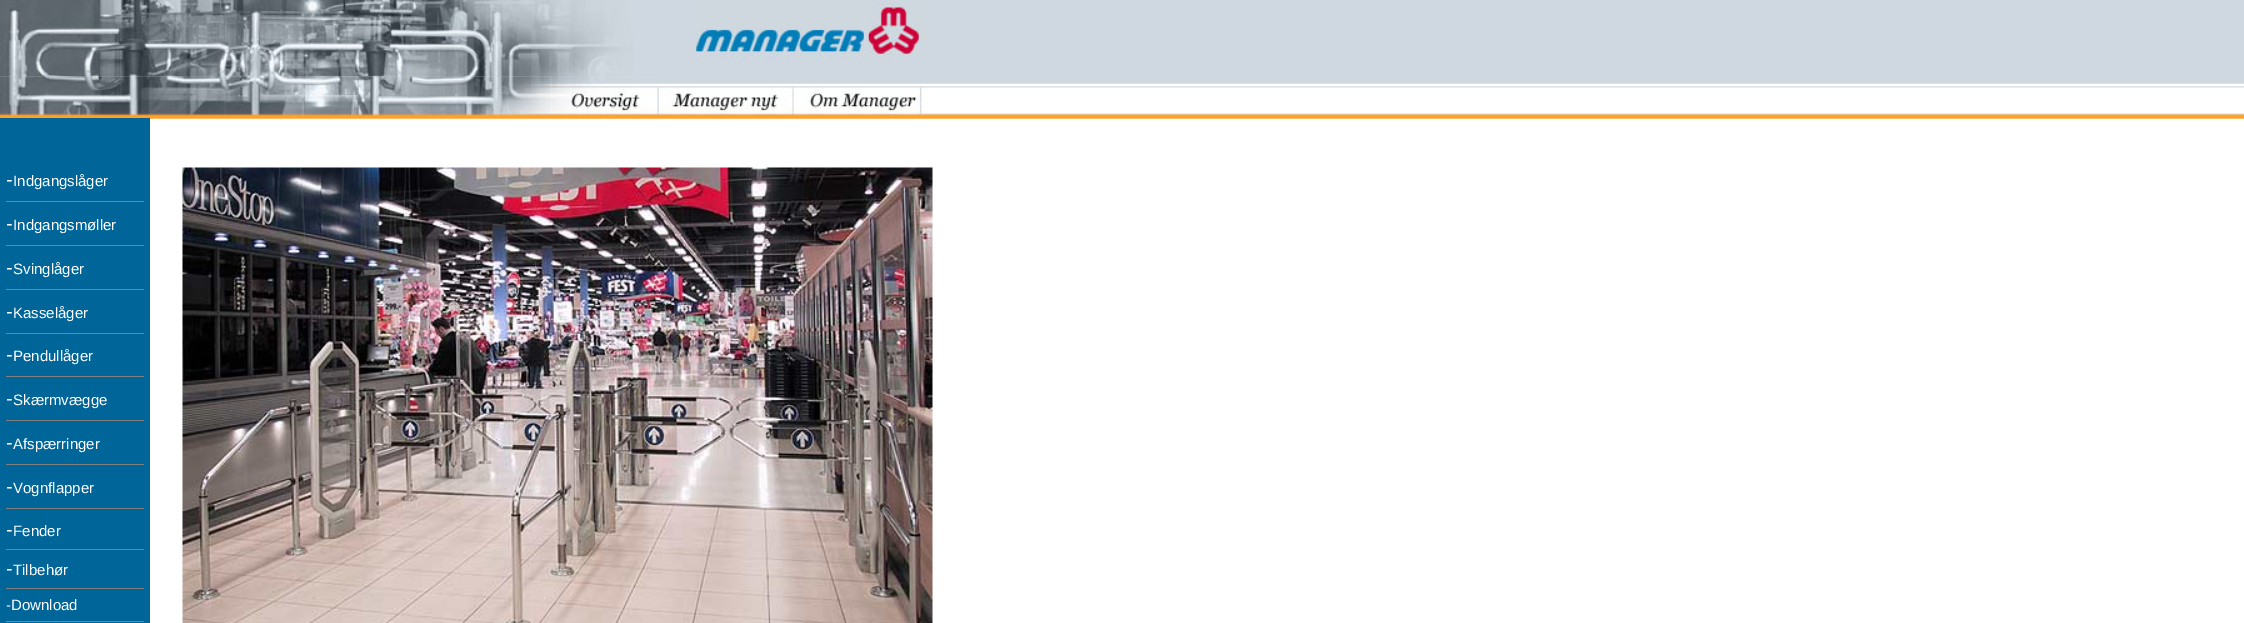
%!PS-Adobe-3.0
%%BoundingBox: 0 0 2244 623
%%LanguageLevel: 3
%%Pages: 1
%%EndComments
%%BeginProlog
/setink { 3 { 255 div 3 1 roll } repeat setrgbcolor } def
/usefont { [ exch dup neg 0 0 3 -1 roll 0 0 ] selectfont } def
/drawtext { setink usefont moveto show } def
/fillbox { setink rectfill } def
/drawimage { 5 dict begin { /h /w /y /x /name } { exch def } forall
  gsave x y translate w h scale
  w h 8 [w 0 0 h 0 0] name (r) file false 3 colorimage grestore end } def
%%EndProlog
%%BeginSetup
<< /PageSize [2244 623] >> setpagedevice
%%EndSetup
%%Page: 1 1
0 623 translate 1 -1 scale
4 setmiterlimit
0 0 2244 623 255 255 255 fillbox
(assets/img1.rgb) 0 0 2244 623 drawimage
(assets/img2.rgb) 0 0 634 77 drawimage
(assets/img3.rgb) 696 0 229 60 drawimage
(assets/img4.rgb) 0 76 552 40 drawimage
(assets/img5.rgb) 551 76 105 40 drawimage
(assets/img6.rgb) 656 86 138 30 drawimage
(assets/img7.rgb) 793 86 132 30 drawimage
0 118 150 505 0 102 153 fillbox
(-) 6 186 /LiberationSans-Regular 20 255 255 255 drawtext
(Indgangslåger) 13 186 /LiberationSans-Regular 15 255 255 255 drawtext
6 201 138 1 128 128 128 fillbox
(-) 6 230 /LiberationSans-Regular 20 255 255 255 drawtext
(Indgangsmøller) 13 230 /LiberationSans-Regular 15 255 255 255 drawtext
6 245 138 1 128 128 128 fillbox
(-) 6 274 /LiberationSans-Regular 20 255 255 255 drawtext
(Svinglåger) 13 274 /LiberationSans-Regular 15 255 255 255 drawtext
6 289 138 1 128 128 128 fillbox
(-) 6 318 /LiberationSans-Regular 20 255 255 255 drawtext
(Kasselåger) 13 318 /LiberationSans-Regular 15 255 255 255 drawtext
6 333 138 1 128 128 128 fillbox
(-) 6 361 /LiberationSans-Regular 20 255 255 255 drawtext
(Pendullåger) 13 361 /LiberationSans-Regular 15 255 255 255 drawtext
6 376 138 1 128 128 128 fillbox
(-) 6 405 /LiberationSans-Regular 20 255 255 255 drawtext
(Skærmvægge) 13 405 /LiberationSans-Regular 15 255 255 255 drawtext
6 420 138 1 128 128 128 fillbox
(-) 6 449 /LiberationSans-Regular 20 255 255 255 drawtext
(Afspærringer) 13 449 /LiberationSans-Regular 15 255 255 255 drawtext
6 464 138 1 128 128 128 fillbox
(-) 6 493 /LiberationSans-Regular 20 255 255 255 drawtext
(Vognflapper) 13 493 /LiberationSans-Regular 15 255 255 255 drawtext
6 508 138 1 128 128 128 fillbox
(-) 6 536 /LiberationSans-Regular 20 255 255 255 drawtext
(Fender) 13 536 /LiberationSans-Regular 15 255 255 255 drawtext
6 549 138 1 128 128 128 fillbox
(-) 6 575 /LiberationSans-Regular 20 255 255 255 drawtext
(Tilbehør) 13 575 /LiberationSans-Regular 15 255 255 255 drawtext
6 588 138 1 128 128 128 fillbox
(-Download) 6 610 /LiberationSans-Regular 15 255 255 255 drawtext
6 621 138 1 128 128 128 fillbox
(assets/img8.rgb) 182 167 751 456 drawimage
showpage
%%EOF
